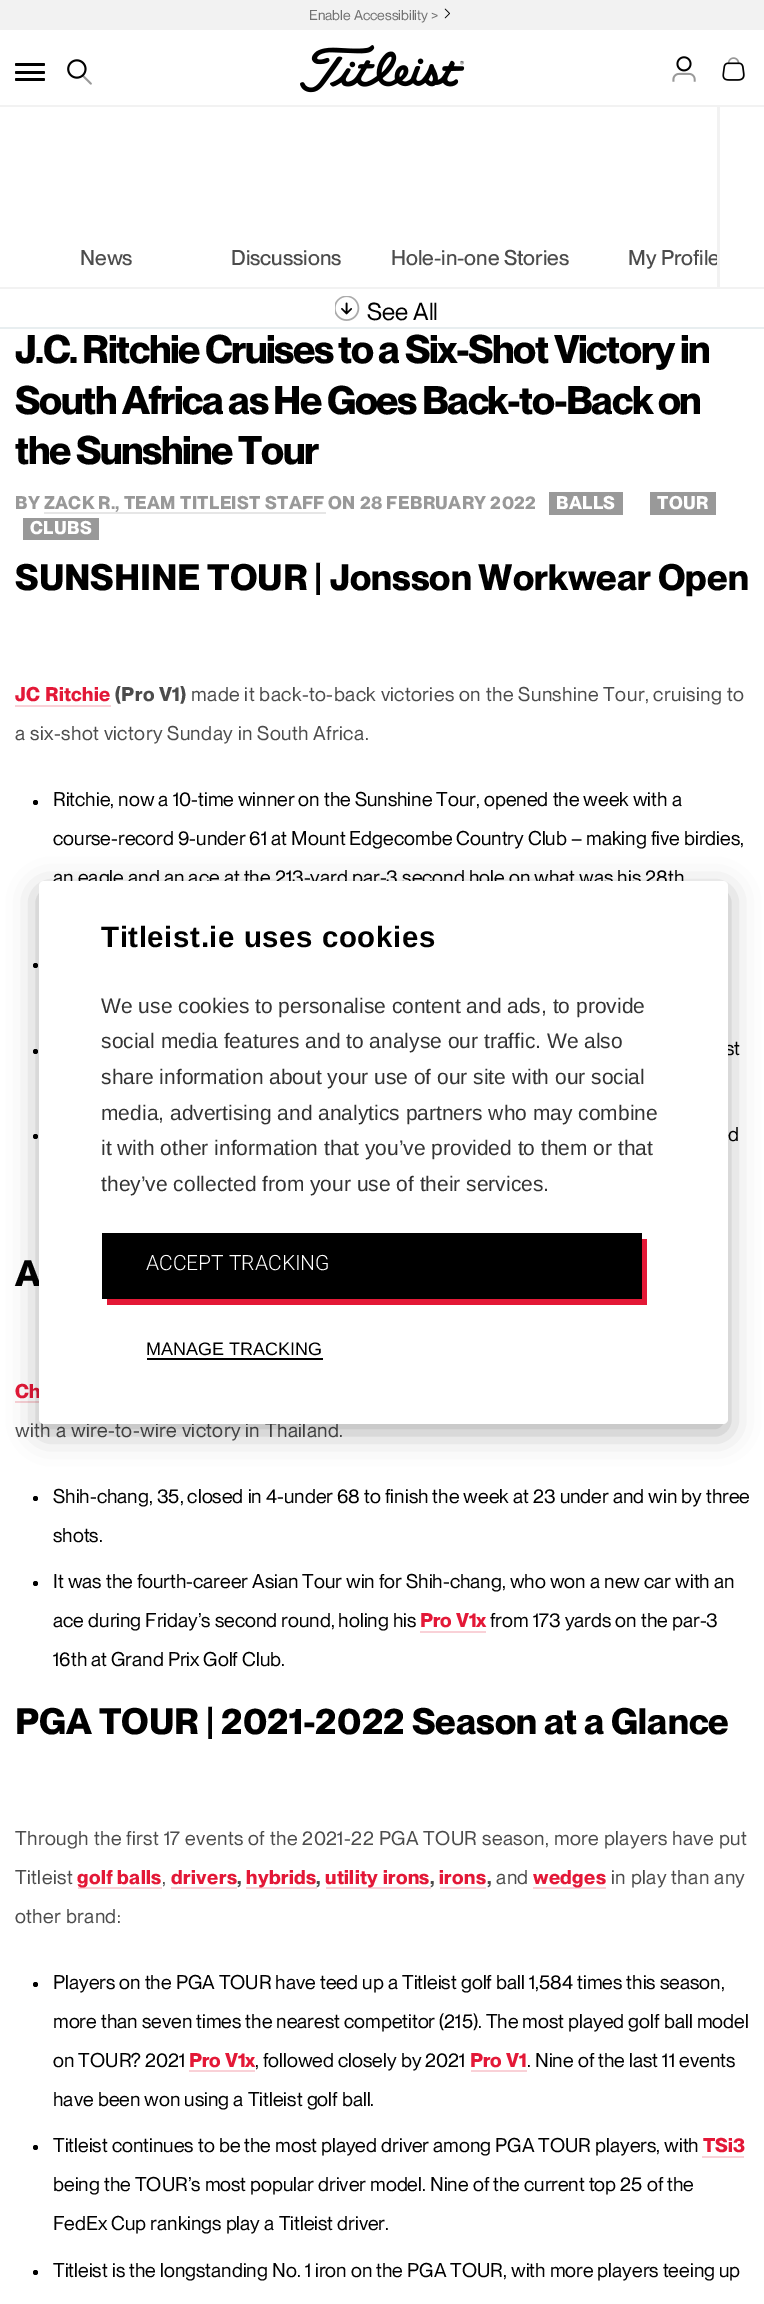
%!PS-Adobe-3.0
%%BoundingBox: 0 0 764 2304
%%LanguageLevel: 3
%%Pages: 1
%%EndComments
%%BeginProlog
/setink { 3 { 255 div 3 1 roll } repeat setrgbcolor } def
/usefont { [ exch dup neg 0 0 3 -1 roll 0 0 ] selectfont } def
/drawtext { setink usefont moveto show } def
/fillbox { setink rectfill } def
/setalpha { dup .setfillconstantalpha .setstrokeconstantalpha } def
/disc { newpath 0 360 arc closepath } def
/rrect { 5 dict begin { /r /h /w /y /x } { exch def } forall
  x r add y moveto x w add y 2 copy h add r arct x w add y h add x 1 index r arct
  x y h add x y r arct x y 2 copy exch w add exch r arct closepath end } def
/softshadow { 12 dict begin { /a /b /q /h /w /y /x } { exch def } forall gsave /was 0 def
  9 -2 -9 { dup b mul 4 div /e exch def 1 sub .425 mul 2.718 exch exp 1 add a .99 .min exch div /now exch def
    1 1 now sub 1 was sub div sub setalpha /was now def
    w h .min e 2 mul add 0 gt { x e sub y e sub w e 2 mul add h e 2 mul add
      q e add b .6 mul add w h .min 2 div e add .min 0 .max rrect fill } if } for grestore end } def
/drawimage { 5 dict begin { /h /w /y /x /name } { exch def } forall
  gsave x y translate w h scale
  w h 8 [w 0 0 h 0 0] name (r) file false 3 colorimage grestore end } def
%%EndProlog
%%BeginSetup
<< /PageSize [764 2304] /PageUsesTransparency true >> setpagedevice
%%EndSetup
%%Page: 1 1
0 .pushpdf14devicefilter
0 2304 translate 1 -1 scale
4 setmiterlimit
0 0 764 2304 255 255 255 fillbox
0 105 764 2 242 242 242 fillbox
0 0 764 30 242 242 242 fillbox
(Enable Accessibility >) 309 20 /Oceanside-Regular 14 112 112 112 drawtext
(assets/img1.rgb) 444 8 6 11 drawimage
0 0 0 setink
15 63 30 3 1.5 rrect fill
15 71 30 3 1.5 rrect fill
15 78 30 3 1.5 rrect fill
(assets/img2.rgb) 67 59 25 26 drawimage
(assets/img3.rgb) 300 45 165 48 drawimage
(assets/img4.rgb) 672 56 24 26 drawimage
(assets/img5.rgb) 722 57 23 24 drawimage
(My Profile) 628 265 /Oceanside-Medium 21 76 76 76 drawtext
717 107 3 180 242 242 242 fillbox
0 287 764 2 242 242 242 fillbox
(News) 80 265 /Oceanside-Medium 21 76 76 76 drawtext
(Discussions) 231 265 /Oceanside-Medium 21 76 76 76 drawtext
(Hole-in-one Stories) 391 265 /Oceanside-Medium 21 76 76 76 drawtext
(assets/img6.rgb) 335 296 25 25 drawimage
(See All) 367 320 /Oceanside-Regular 24 0 0 0 drawtext
0 327 764 2 232 238 240 fillbox
/Oceanside-Bold 39 usefont
0 0 0 setink
15 363 moveto -1.5 0 (J.C. Ritchie Cruises to a Six-Shot Victory in) ashow
15 414 moveto -1.5 0 (South Africa as He Goes Back-to-Back on) ashow
15 464 moveto -1.5 0 (the Sunshine Tour) ashow
/Oceanside-Bold 18 usefont
153 153 153 setink
15 509 moveto 0.35 0 (BY ZACK R., TEAM TITLEIST STAFF ON 28 FEBRUARY 2022) ashow
549 492 74 23 153 153 153 fillbox
255 255 255 setink
556 509 moveto 0.35 0 (BALLS) ashow
650 492 66 23 153 153 153 fillbox
255 255 255 setink
657 509 moveto 0.35 0 (TOUR) ashow
44 512 282 2 230 230 230 fillbox
23 518 76 22 153 153 153 fillbox
255 255 255 setink
30 534 moveto 0.35 0 (CLUBS) ashow
(SUNSHINE TOUR | Jonsson Workwear Open) 15 590 /Oceanside-Bold 36 0 0 0 drawtext
/Oceanside-Bold 19.5 usefont
227 24 55 setink
15 701 moveto 0.4 0 (JC Ritchie) ashow
15 705 96 2 249 209 215 fillbox
76 76 76 setink
115 701 moveto 0.4 0 (\(Pro V1\)) ashow
/Oceanside-Regular 19.5 usefont
191 701 moveto 0.4 0 (made it back-to-back victories on the Sunshine Tour, cruising to) ashow
15 740 moveto 0.4 0 (a six-shot victory Sunday in South Africa.) ashow
0 0 0 setink
35.5 802.5 2.5 disc fill
(Ritchie, now a 10-time winner on the Sunshine Tour, opened the week with a) 53 806 /Oceanside-Regular 19.5 0 0 0 drawtext
(course-record 9-under 61 at Mount Edgecombe Country Club – making five birdies,) 53 845 /Oceanside-Regular 19.5 0 0 0 drawtext
(an eagle and an ace at the 213-yard par-3 second hole on what was his 28th) 53 884 /Oceanside-Regular 19.5 0 0 0 drawtext
35.5 965.5 2.5 disc fill
35.5 1051.5 2.5 disc fill
(st) 725 1055 /Oceanside-Regular 19.5 0 0 0 drawtext
35.5 1136.5 2.5 disc fill
(d) 728 1141 /Oceanside-Regular 19.5 0 0 0 drawtext
(A) 15 1286 /Oceanside-Bold 36 0 0 0 drawtext
/Oceanside-Bold 19.5 usefont
227 24 55 setink
15 1398 moveto 0.4 0 (Ch) ashow
15 1401 24 2 249 209 215 fillbox
/Oceanside-Regular 19.5 usefont
76 76 76 setink
15 1437 moveto 0.4 0 (with a wire-to-wire victory in Thailand.) ashow
0 0 0 setink
35.5 1498.5 2.5 disc fill
(Shih-chang, 35, closed in 4-under 68 to finish the week at 23 under and win by three) 53 1503 /Oceanside-Regular 19.5 0 0 0 drawtext
(shots.) 53 1542 /Oceanside-Regular 19.5 0 0 0 drawtext
35.5 1583.5 2.5 disc fill
(It was the fourth-career Asian Tour win for Shih-chang, who won a new car with an) 53 1588 /Oceanside-Regular 19.5 0 0 0 drawtext
(ace during Friday’s second round, holing his) 53 1627 /Oceanside-Regular 19.5 0 0 0 drawtext
(Pro V1x) 420 1627 /Oceanside-Bold 19.5 227 24 55 drawtext
420 1631 66 2 249 209 215 fillbox
(from 173 yards on the par-3) 490 1627 /Oceanside-Regular 19.5 0 0 0 drawtext
(16th at Grand Prix Golf Club.) 53 1666 /Oceanside-Regular 19.5 0 0 0 drawtext
(PGA TOUR | 2021-2022 Season at a Glance) 15 1734 /Oceanside-Bold 36 0 0 0 drawtext
/Oceanside-Regular 19.5 usefont
76 76 76 setink
15 1845 moveto 0.4 0 (Through the first 17 events of the 2021-22 PGA TOUR season, more players have put) ashow
15 1884 moveto 0.4 0 (Titleist) ashow
78 1887 84 2 249 209 215 fillbox
/Oceanside-Bold 19.5 usefont
227 24 55 setink
77 1884 moveto 0.4 0 (golf balls) ashow
/Oceanside-Regular 19.5 usefont
76 76 76 setink
162 1884 moveto 0.4 0 (,) ashow
/Oceanside-Bold 19.5 usefont
227 24 55 setink
171 1884 moveto 0.4 0 (drivers) ashow
171 1887 66 2 249 209 215 fillbox
76 76 76 setink
237 1884 moveto 0.4 0 (,) ashow
246 1887 71 2 249 209 215 fillbox
227 24 55 setink
246 1884 moveto 0.4 0 (hybrids) ashow
76 76 76 setink
316 1884 moveto 0.4 0 (,) ashow
326 1887 105 2 249 209 215 fillbox
227 24 55 setink
325 1884 moveto 0.4 0 (utility irons) ashow
76 76 76 setink
430 1884 moveto 0.4 0 (,) ashow
227 24 55 setink
439 1884 moveto 0.4 0 (irons) ashow
76 76 76 setink
487 1884 moveto 0.4 0 (,) ashow
440 1887 46 2 249 209 215 fillbox
/Oceanside-Regular 19.5 usefont
76 76 76 setink
496 1884 moveto 0.4 0 (and) ashow
533 1887 73 2 249 209 215 fillbox
/Oceanside-Bold 19.5 usefont
227 24 55 setink
533 1884 moveto 0.4 0 (wedges) ashow
/Oceanside-Regular 19.5 usefont
76 76 76 setink
611 1884 moveto 0.4 0 (in play than any) ashow
15 1923 moveto 0.4 0 (other brand:) ashow
0 0 0 setink
35.5 1984.5 2.5 disc fill
(Players on the PGA TOUR have teed up a Titleist golf ball 1,584 times this season,) 53 1989 /Oceanside-Regular 19.5 0 0 0 drawtext
(more than seven times the nearest competitor \(215\). The most played golf ball model) 53 2028 /Oceanside-Regular 19.5 0 0 0 drawtext
(on TOUR? 2021) 53 2067 /Oceanside-Regular 19.5 0 0 0 drawtext
(Pro V1x) 189 2067 /Oceanside-Bold 19.5 227 24 55 drawtext
189 2070 66 2 249 209 215 fillbox
(, followed closely by 2021) 255 2067 /Oceanside-Regular 19.5 0 0 0 drawtext
(Pro V1) 470 2067 /Oceanside-Bold 19.5 227 24 55 drawtext
471 2070 56 2 249 209 215 fillbox
(. Nine of the last 11 events) 527 2067 /Oceanside-Regular 19.5 0 0 0 drawtext
(have been won using a Titleist golf ball.) 53 2106 /Oceanside-Regular 19.5 0 0 0 drawtext
35.5 2147.5 2.5 disc fill
(Titleist continues to be the most played driver among PGA TOUR players, with) 53 2152 /Oceanside-Regular 19.5 0 0 0 drawtext
(TSi3) 703 2152 /Oceanside-Bold 19.5 227 24 55 drawtext
702 2156 42 2 249 209 215 fillbox
(being the TOUR’s most popular driver model. Nine of the current top 25 of the) 53 2191 /Oceanside-Regular 19.5 0 0 0 drawtext
(FedEx Cup rankings play a Titleist driver.) 53 2230 /Oceanside-Regular 19.5 0 0 0 drawtext
35.5 2272.5 2.5 disc fill
(Titleist is the longstanding No. 1 iron on the PGA TOUR, with more players teeing up) 53 2277 /Oceanside-Regular 19.5 0 0 0 drawtext
39 890 689 543 5 15 0.3 softshadow
255 255 255 setink
39 881 689 543 5 rrect fill
/LiberationSans-Bold 29.4 usefont
0 0 0 setink
101 947 moveto 0.6 0 (Titleist.ie uses cookies) ashow
(We use cookies to personalise content and ads, to provide) 101 1013 /LiberationSans-Regular 21 51 51 51 drawtext
(social media features and to analyse our traffic. We also) 101 1048 /LiberationSans-Regular 21 51 51 51 drawtext
(share information about your use of our site with our social) 101 1084 /LiberationSans-Regular 21 51 51 51 drawtext
(media, advertising and analytics partners who may combine) 101 1120 /LiberationSans-Regular 21 51 51 51 drawtext
(it with other information that you’ve provided to them or that) 101 1155 /LiberationSans-Regular 21 51 51 51 drawtext
(they’ve collected from your use of their services.) 101 1191 /LiberationSans-Regular 21 51 51 51 drawtext
227 24 54 setink
107 1299 moveto 107 1305 lineto 647 1305 lineto 647 1239 lineto 641 1239 lineto 641 1299 lineto closepath fill
102 1233 540 66 0 0 0 fillbox
(ACCEPT TRACKING) 146 1270 /Roboto-Light 21 255 255 255 drawtext
(MANAGE TRACKING) 146 1355 /LiberationSans-Regular 18 0 0 0 drawtext
147 1358 176 2 0 0 0 fillbox
.poppdf14devicefilter showpage
%%EOF
